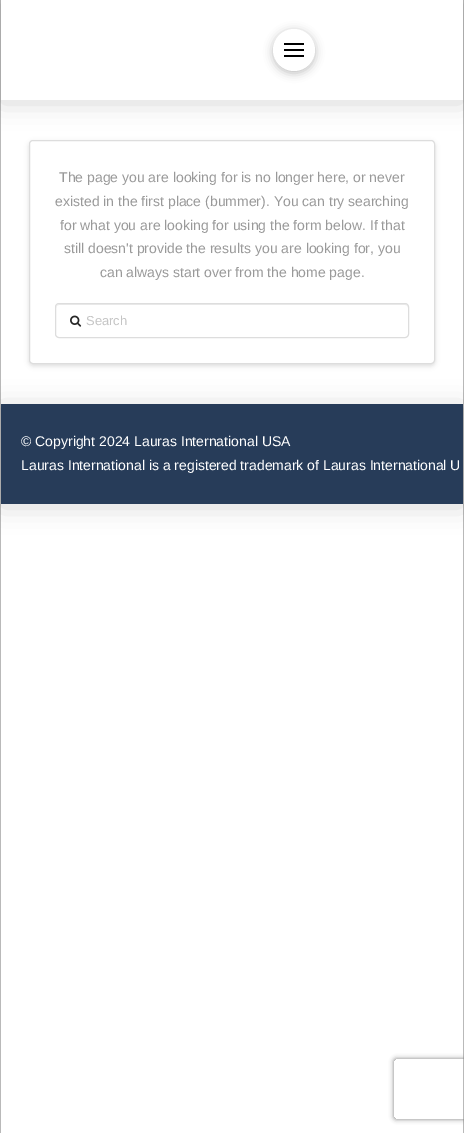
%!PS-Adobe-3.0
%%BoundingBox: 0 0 464 1133
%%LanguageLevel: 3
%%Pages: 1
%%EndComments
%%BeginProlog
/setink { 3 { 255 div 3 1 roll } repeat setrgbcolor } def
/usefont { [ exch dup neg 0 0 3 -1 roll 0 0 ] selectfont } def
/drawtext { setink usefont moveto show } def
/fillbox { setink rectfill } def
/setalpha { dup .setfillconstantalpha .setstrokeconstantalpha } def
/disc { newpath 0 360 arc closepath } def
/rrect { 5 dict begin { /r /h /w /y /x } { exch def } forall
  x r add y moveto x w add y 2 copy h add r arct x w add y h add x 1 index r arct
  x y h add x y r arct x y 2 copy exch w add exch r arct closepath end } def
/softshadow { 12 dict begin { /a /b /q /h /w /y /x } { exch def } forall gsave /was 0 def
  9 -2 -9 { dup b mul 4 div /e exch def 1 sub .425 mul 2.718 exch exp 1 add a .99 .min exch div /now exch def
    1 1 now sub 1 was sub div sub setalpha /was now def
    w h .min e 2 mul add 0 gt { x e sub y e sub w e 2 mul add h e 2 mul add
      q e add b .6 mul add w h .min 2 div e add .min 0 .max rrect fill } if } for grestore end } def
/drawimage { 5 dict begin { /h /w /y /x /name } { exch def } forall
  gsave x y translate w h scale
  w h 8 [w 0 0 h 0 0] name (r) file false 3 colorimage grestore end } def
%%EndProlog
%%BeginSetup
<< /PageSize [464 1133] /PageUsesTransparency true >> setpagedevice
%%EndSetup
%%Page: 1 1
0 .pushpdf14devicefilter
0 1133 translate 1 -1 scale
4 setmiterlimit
0 0 464 1133 255 255 255 fillbox
463 0 1 1133 185 185 185 fillbox
0 0 1 1133 185 185 185 fillbox
0 0 0 setink
29 142 406 224 4 2.5 0.13 softshadow
255 255 255 setink
29.5 140.5 405 223 3.5 rrect gsave fill grestore
221 221 221 setink
stroke
gsave
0 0 moveto 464 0 lineto 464 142 lineto 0 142 lineto closepath 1 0 moveto 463 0 lineto 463 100 lineto 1 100 lineto closepath eoclip newpath
0 0 0 setink
1 3 462 100 0 12.5 0.15 softshadow
grestore
0 0 0 setink
273 31 42 42 21 4.5 0.25 softshadow
255 255 255 setink
294 50 21 disc fill
284 43 20 2 0 0 0 fillbox
284 49 20 2 0 0 0 fillbox
284 55 20 2 0 0 0 fillbox
(The page you are looking for is no longer here, or never) 59 182 /LiberationSans-Regular 14 153 153 153 drawtext
(existed in the first place \(bummer\). You can try searching) 55 206 /LiberationSans-Regular 14 153 153 153 drawtext
(for what you are looking for using the form below. If that) 60 230 /LiberationSans-Regular 14 153 153 153 drawtext
(still doesn't provide the results you are looking for, you) 64 253 /LiberationSans-Regular 14 153 153 153 drawtext
(can always start over from the home page.) 100 277 /LiberationSans-Regular 14 153 153 153 drawtext
236 236 236 setink
59 305 moveto 405 305 lineto 407 305 408 306 408 308 curveto 408 306 407 304 405 304 curveto 59 304 lineto 57 305 lineto 56 308 lineto 56 306 57 305 59 305 curveto closepath fill
221 221 221 setink
55.5 303.5 353 34 3.5 rrect stroke
(assets/img1.rgb) 70 315 12 12 drawimage
(Search) 86 325 /LiberationSans-Regular 13 197 197 197 drawtext
0 0 0 setink
1 407 462 100 0 12.5 0.15 softshadow
1 404 462 100 39 60 89 fillbox
(© Copyright 2024 Lauras International USA) 21 446 /LiberationSans-Regular 14 255 255 255 drawtext
(Lauras International is a registered trademark of Lauras International U) 21 470 /LiberationSans-Regular 14 255 255 255 drawtext
gsave
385 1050 moveto 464 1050 lineto 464 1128 lineto 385 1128 lineto closepath 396 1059 moveto 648 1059 lineto 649 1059 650 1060 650 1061 curveto 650 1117 lineto 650 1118 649 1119 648 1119 curveto 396 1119 lineto 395 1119 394 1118 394 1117 curveto 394 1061 lineto 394 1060 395 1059 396 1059 curveto closepath eoclip newpath
128 128 128 setink
394 1059 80 60 2 2.5 1 softshadow
grestore
.poppdf14devicefilter showpage
%%EOF
